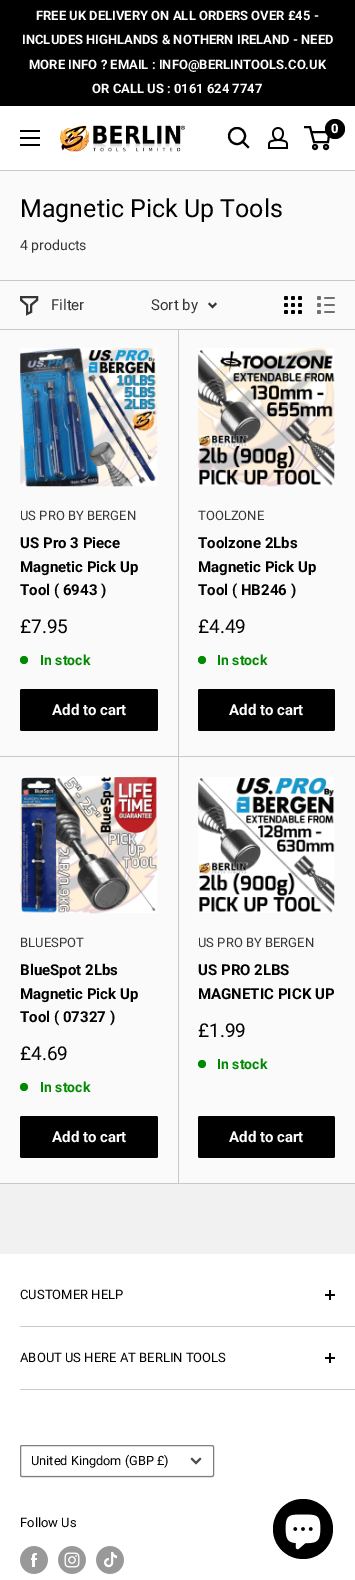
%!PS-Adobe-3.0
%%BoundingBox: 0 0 355 1580
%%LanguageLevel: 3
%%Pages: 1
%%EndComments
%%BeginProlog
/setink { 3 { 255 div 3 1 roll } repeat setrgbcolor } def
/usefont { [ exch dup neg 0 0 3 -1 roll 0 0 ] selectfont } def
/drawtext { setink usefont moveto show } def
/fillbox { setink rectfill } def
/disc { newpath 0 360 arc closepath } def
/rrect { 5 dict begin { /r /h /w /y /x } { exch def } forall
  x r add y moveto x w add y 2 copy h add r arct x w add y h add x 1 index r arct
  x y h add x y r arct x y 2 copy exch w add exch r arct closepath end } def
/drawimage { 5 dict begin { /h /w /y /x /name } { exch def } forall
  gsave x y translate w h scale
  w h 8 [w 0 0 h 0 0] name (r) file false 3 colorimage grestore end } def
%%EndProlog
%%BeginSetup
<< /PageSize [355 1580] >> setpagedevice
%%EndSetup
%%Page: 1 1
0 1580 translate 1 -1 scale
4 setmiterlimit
0 0 355 1580 241 241 241 fillbox
0 0 355 106 0 0 0 fillbox
(FREE UK DELIVERY ON ALL ORDERS OVER £45 -) 36 20 /Roboto-Bold 13 255 255 255 drawtext
(INCLUDES HIGHLANDS & NOTHERN IRELAND - NEED) 22 44 /Roboto-Bold 13 255 255 255 drawtext
(MORE INFO ? EMAIL : INFO@BERLINTOOLS.CO.UK) 29 69 /Roboto-Bold 13 255 255 255 drawtext
(OR CALL US : 0161 624 7747) 92 93 /Roboto-Bold 13 255 255 255 drawtext
0 106 355 64 255 255 255 fillbox
(assets/img1.rgb) 20 130 20 16 drawimage
(assets/img2.rgb) 60 125 125 27 drawimage
0 0 0 setink
2.1 setlinewidth
2 setlinecap
248 147 moveto 242.5 141.5 lineto stroke
0 setlinecap
237 136 8 disc stroke
(assets/img3.rgb) 268 127 20 22 drawimage
2 setlinewidth
315 147 2 disc stroke
326 147 2 disc stroke
311.5 132 moveto 329.5 132 lineto 328 142 lineto 314 142 lineto 310 127 lineto 304 127 lineto stroke
335 129 10 disc fill
(0) 331 133 /Roboto-Black 13 255 255 255 drawtext
0 171 355 1012 250 250 250 fillbox
0 170 355 1 201 201 201 fillbox
0 1183 355 1 201 201 201 fillbox
(Magnetic Pick Up Tools) 20 217 /Roboto-Regular 25 0 0 0 drawtext
(4 products) 20 250 /Roboto-Regular 14 54 54 54 drawtext
0 280 355 1 201 201 201 fillbox
0 756 355 1 201 201 201 fillbox
178 329 1 854 201 201 201 fillbox
0 329 355 1 201 201 201 fillbox
54 54 54 setink
2 setlinecap
37 300 moveto 31 305 lineto 31 312 lineto 27 314 lineto 27 305 lineto 21 300 lineto 21 297 lineto 37 297 lineto closepath stroke
(Filter) 51 310 /Roboto-Regular 15 54 54 54 drawtext
(Sort by) 151 310 /Roboto-Regular 15 54 54 54 drawtext
1.9 setlinewidth
215.5 304 moveto 212.5 307 lineto 209.5 304 lineto stroke
(assets/img4.rgb) 284 296 18 18 drawimage
(assets/img5.rgb) 317 296 18 18 drawimage
(assets/img6.rgb) 20 348 138 139 drawimage
(US PRO BY BERGEN) 20 520 /Roboto-Regular 13 54 54 54 drawtext
(US Pro 3 Piece) 20 548 /Roboto-Bold 15 0 0 0 drawtext
(Magnetic Pick Up) 20 572 /Roboto-Bold 15 0 0 0 drawtext
(Tool \( 6943 \)) 20 595 /Roboto-Bold 15 0 0 0 drawtext
(£7.95) 20 633 /Roboto-Regular 19 0 0 0 drawtext
0 138 0 setink
24 660 4 disc fill
(In stock) 40 665 /Roboto-Bold 14 0 138 0 drawtext
0 0 0 setink
20 689 138 42 2 rrect fill
(Add to cart) 52 715 /Roboto-Bold 15 255 255 255 drawtext
(assets/img7.rgb) 198 348 137 139 drawimage
(TOOLZONE) 198 520 /Roboto-Regular 13 54 54 54 drawtext
(Toolzone 2Lbs) 198 548 /Roboto-Bold 15 0 0 0 drawtext
(Magnetic Pick Up) 198 572 /Roboto-Bold 15 0 0 0 drawtext
(Tool \( HB246 \)) 198 595 /Roboto-Bold 15 0 0 0 drawtext
(£4.49) 198 633 /Roboto-Regular 19 0 0 0 drawtext
0 138 0 setink
202 660 4 disc fill
(In stock) 217 665 /Roboto-Bold 14 0 138 0 drawtext
0 0 0 setink
198 689 137 42 2 rrect fill
(Add to cart) 229 715 /Roboto-Bold 15 255 255 255 drawtext
(assets/img8.rgb) 20 776 138 138 drawimage
(BLUESPOT) 20 947 /Roboto-Regular 13 54 54 54 drawtext
(BlueSpot 2Lbs) 20 975 /Roboto-Bold 15 0 0 0 drawtext
(Magnetic Pick Up) 20 999 /Roboto-Bold 15 0 0 0 drawtext
(Tool \( 07327 \)) 20 1022 /Roboto-Bold 15 0 0 0 drawtext
(£4.69) 20 1060 /Roboto-Regular 19 0 0 0 drawtext
0 138 0 setink
24 1087 4 disc fill
(In stock) 40 1092 /Roboto-Bold 14 0 138 0 drawtext
0 0 0 setink
20 1116 138 42 2 rrect fill
(Add to cart) 52 1142 /Roboto-Bold 15 255 255 255 drawtext
(assets/img9.rgb) 198 777 137 136 drawimage
(US PRO BY BERGEN) 198 947 /Roboto-Regular 13 54 54 54 drawtext
(US PRO 2LBS) 198 975 /Roboto-Bold 15 0 0 0 drawtext
(MAGNETIC PICK UP) 198 999 /Roboto-Bold 15 0 0 0 drawtext
(£1.99) 198 1037 /Roboto-Regular 19 0 0 0 drawtext
0 138 0 setink
202 1064 4 disc fill
(In stock) 217 1069 /Roboto-Bold 14 0 138 0 drawtext
0 0 0 setink
198 1116 137 42 2 rrect fill
(Add to cart) 229 1142 /Roboto-Bold 15 255 255 255 drawtext
0 1254 355 326 255 255 255 fillbox
20 1326 335 1 201 201 201 fillbox
(CUSTOMER HELP) 20 1299 /Roboto-Regular 13 0 0 0 drawtext
329 1290 2 10 0 0 0 fillbox
325 1294 10 2 0 0 0 fillbox
20 1389 335 1 201 201 201 fillbox
(ABOUT US HERE AT BERLIN TOOLS) 20 1362 /Roboto-Regular 13 0 0 0 drawtext
329 1353 2 10 0 0 0 fillbox
325 1357 10 2 0 0 0 fillbox
239 239 239 setink
21 1474 moveto 21 1475 21 1476 22 1476 curveto 213 1476 lineto 213 1474 lineto 213 1475 lineto 22 1475 lineto 21 1475 21 1475 21 1474 curveto closepath fill
128 128 128 setink
1 setlinewidth
0 setlinecap
20.5 1445.5 193 31 1.5 rrect stroke
(United Kingdom \(GBP £\)) 31 1465 /Roboto-Regular 12.75 0 0 0 drawtext
77 77 77 setink
2 setlinewidth
2 setlinecap
200 1459 moveto 196 1463 lineto 192 1459 lineto stroke
(Follow Us) 20 1527 /Roboto-Regular 13 0 0 0 drawtext
(assets/img10.rgb) 20 1546 28 28 drawimage
(assets/img11.rgb) 58 1546 28 28 drawimage
(assets/img12.rgb) 96 1546 28 28 drawimage
303 1529 30 disc fill
(assets/img13.rgb) 285 1514 36 36 drawimage
showpage
%%EOF
